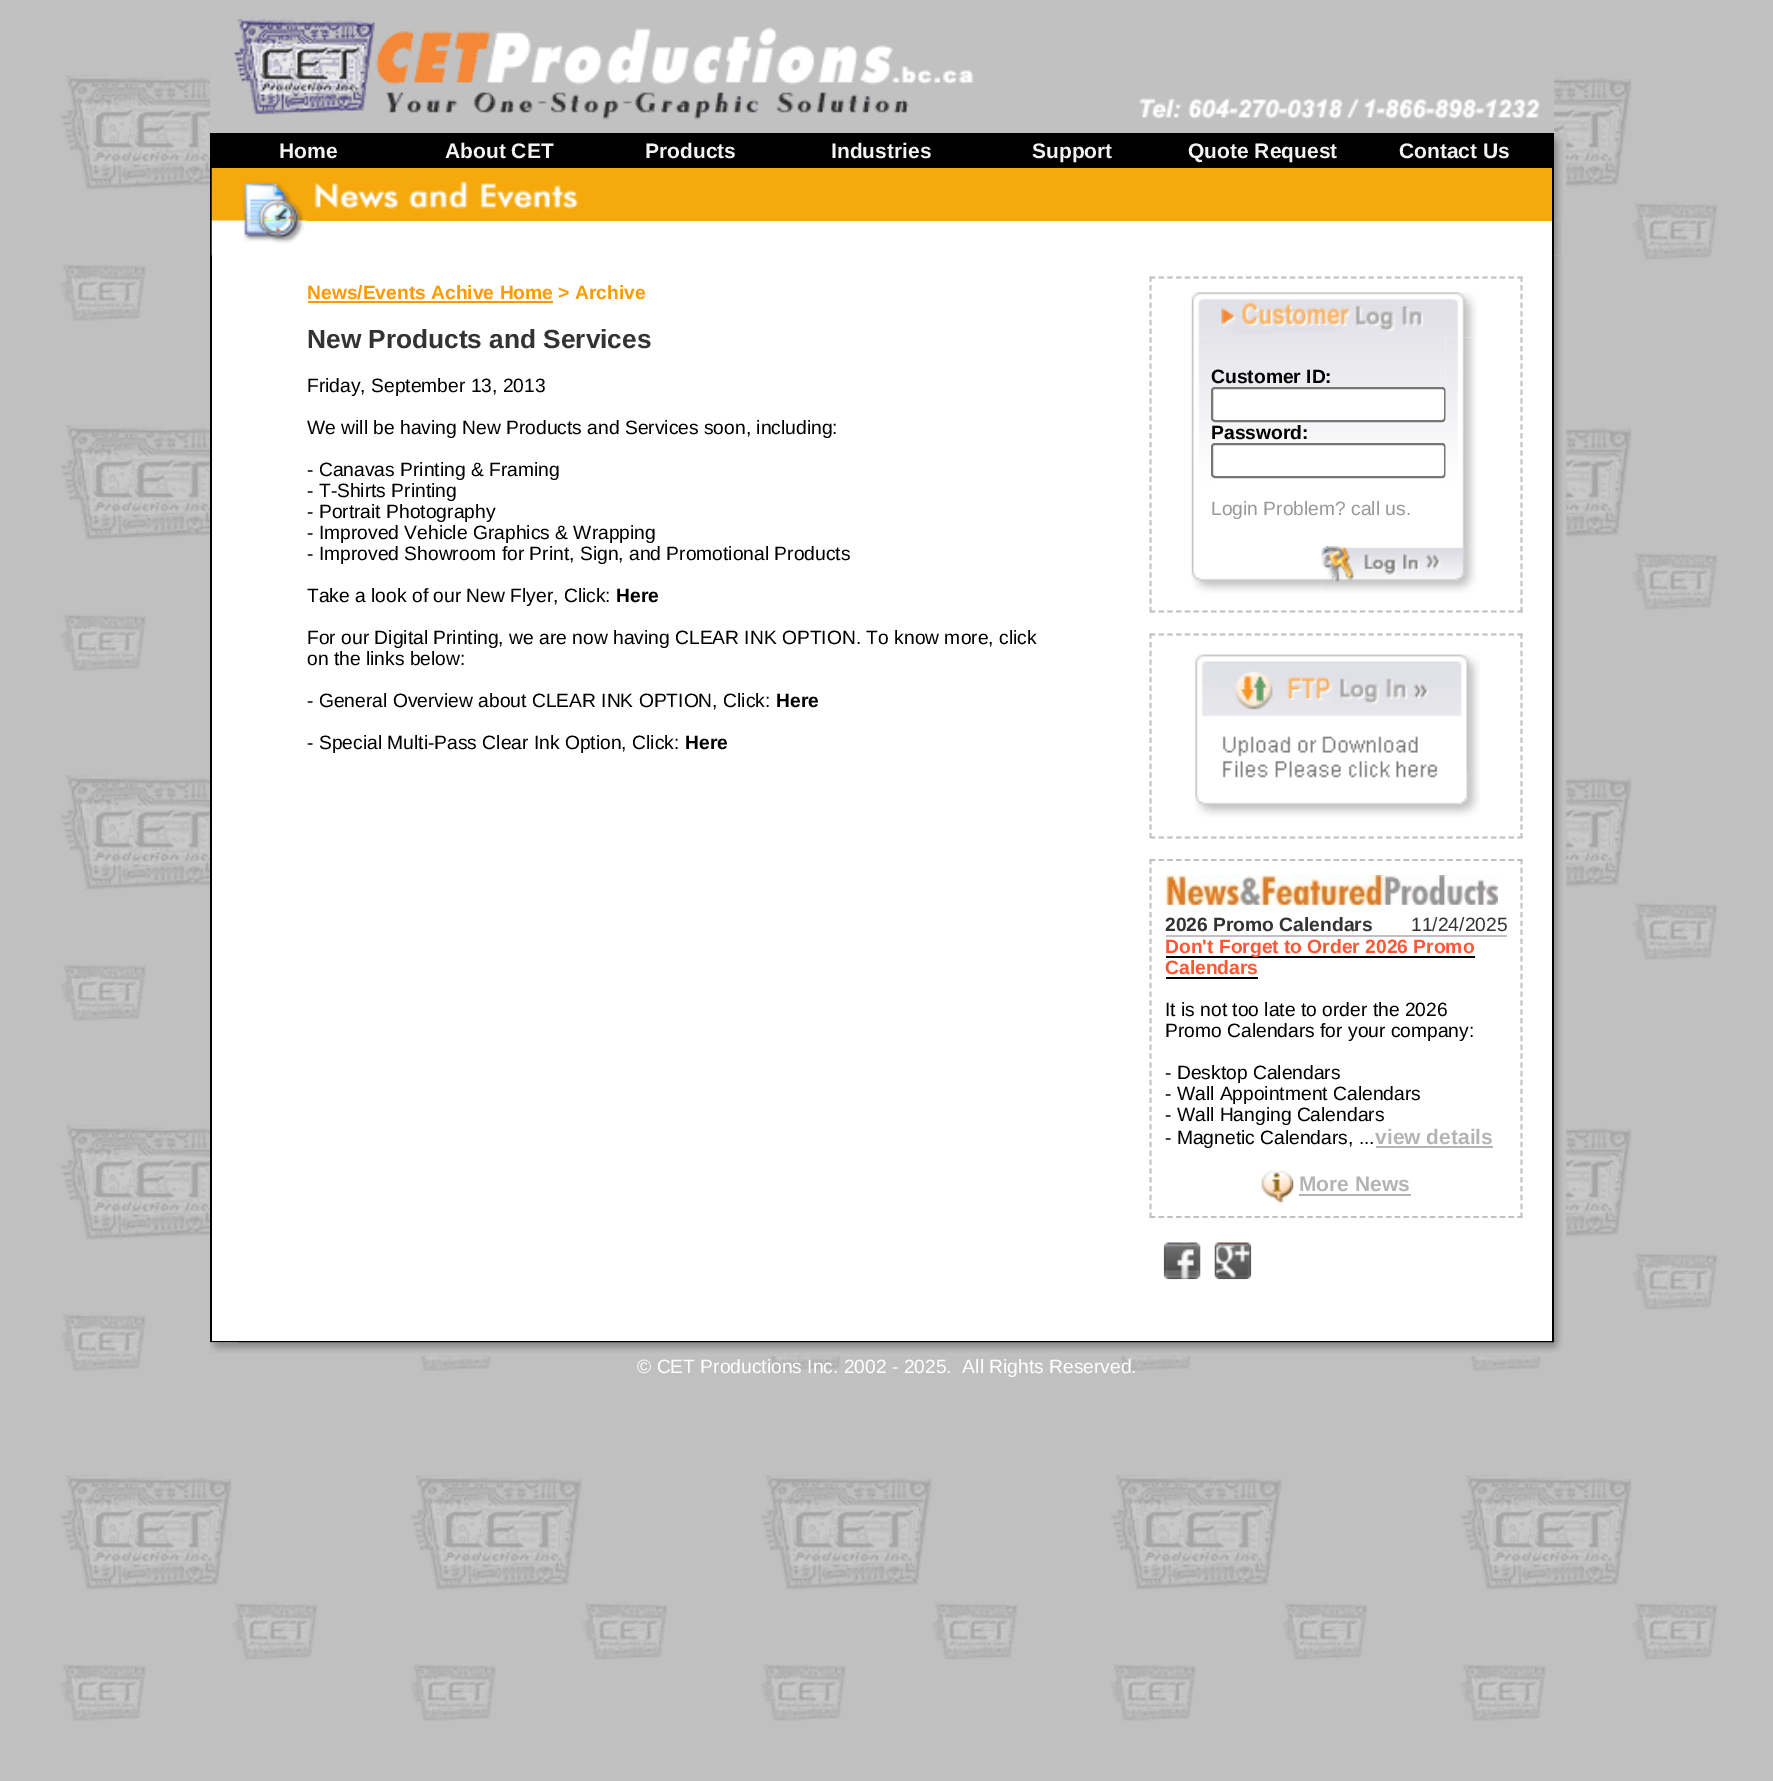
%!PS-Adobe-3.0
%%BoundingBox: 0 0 1773 1781
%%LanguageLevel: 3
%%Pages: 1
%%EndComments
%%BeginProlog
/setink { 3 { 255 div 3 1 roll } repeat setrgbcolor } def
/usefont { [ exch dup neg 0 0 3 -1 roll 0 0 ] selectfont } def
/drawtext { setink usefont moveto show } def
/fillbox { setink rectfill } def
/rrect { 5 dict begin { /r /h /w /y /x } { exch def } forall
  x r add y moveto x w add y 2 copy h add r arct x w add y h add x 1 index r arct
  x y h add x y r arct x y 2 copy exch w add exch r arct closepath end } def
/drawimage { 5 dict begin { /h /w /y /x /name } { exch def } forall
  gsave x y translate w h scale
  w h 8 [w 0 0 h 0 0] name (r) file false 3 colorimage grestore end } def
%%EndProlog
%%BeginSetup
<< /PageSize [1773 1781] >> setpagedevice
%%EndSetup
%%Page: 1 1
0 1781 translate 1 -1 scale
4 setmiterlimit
0 0 1773 1781 255 255 255 fillbox
(assets/img1.rgb) 0 0 1773 1781 drawimage
(assets/img2.rgb) 210 19 1344 114 drawimage
210 133 1344 35 0 0 0 fillbox
(Home) 279 158 /LiberationSans-Bold 21 244 243 243 drawtext
(About CET) 445 158 /LiberationSans-Bold 21 244 243 243 drawtext
(Products) 645 158 /LiberationSans-Bold 21 244 243 243 drawtext
(Industries) 831 158 /LiberationSans-Bold 21 244 243 243 drawtext
(Support) 1032 158 /LiberationSans-Bold 21 244 243 243 drawtext
(Quote Request) 1188 158 /LiberationSans-Bold 21 244 243 243 drawtext
(Contact Us) 1399 158 /LiberationSans-Bold 21 244 243 243 drawtext
(assets/img3.rgb) 1554 133 13 35 drawimage
212 168 1340 53 245 169 12 fillbox
1552 168 2 1174 0 0 0 fillbox
210 168 2 88 0 0 0 fillbox
(assets/img4.rgb) 211 168 367 53 drawimage
(assets/img5.rgb) 1554 168 13 53 drawimage
212 221 1340 1120 255 255 255 fillbox
(assets/img6.rgb) 211 220 96 36 drawimage
(assets/img7.rgb) 1554 220 8 36 drawimage
210 1341 1344 2 0 0 0 fillbox
210 256 2 1086 0 0 0 fillbox
(News/Events Achive Home > Archive) 307 299 /LiberationSans-Bold 19.25 255 153 0 drawtext
308 301 245 2 255 153 0 fillbox
(New Products and Services) 307 348 /LiberationSans-Bold 26.25 51 51 51 drawtext
(Friday, September 13, 2013) 307 392 /LiberationSans-Regular 19.25 0 0 0 drawtext
(We will be having New Products and Services soon, including:) 307 434 /LiberationSans-Regular 19.25 0 0 0 drawtext
(- Canavas Printing & Framing) 307 476 /LiberationSans-Regular 19.25 0 0 0 drawtext
(- T-Shirts Printing) 307 497 /LiberationSans-Regular 19.25 0 0 0 drawtext
(- Portrait Photography) 307 518 /LiberationSans-Regular 19.25 0 0 0 drawtext
(- Improved Vehicle Graphics & Wrapping) 307 539 /LiberationSans-Regular 19.25 0 0 0 drawtext
(- Improved Showroom for Print, Sign, and Promotional Products) 307 560 /LiberationSans-Regular 19.25 0 0 0 drawtext
(Take a look of our New Flyer, Click:) 307 602 /LiberationSans-Regular 19.25 0 0 0 drawtext
(Here) 616 602 /LiberationSans-Bold 19.25 0 0 0 drawtext
(For our Digital Printing, we are now having CLEAR INK OPTION. To know more, click) 307 644 /LiberationSans-Regular 19.25 0 0 0 drawtext
(on the links below:) 307 665 /LiberationSans-Regular 19.25 0 0 0 drawtext
(- General Overview about CLEAR INK OPTION, Click:) 307 707 /LiberationSans-Regular 19.25 0 0 0 drawtext
(Here) 776 707 /LiberationSans-Bold 19.25 0 0 0 drawtext
(- Special Multi-Pass Clear Ink Option, Click:) 307 749 /LiberationSans-Regular 19.25 0 0 0 drawtext
(Here) 685 749 /LiberationSans-Bold 19.25 0 0 0 drawtext
193 193 193 setink
1.8 setlinewidth
[5.25 3.5] 0 setdash
1150 277.5 moveto 1522.5 277.5 lineto stroke
[5.25 3.45] 0 setdash
1521.5 276.5 moveto 1521.5 612.5 lineto stroke
[5.25 3.5] 0 setdash
1150 611.5 moveto 1522.5 611.5 lineto stroke
[5.25 3.45] 0 setdash
1150.5 276.5 moveto 1150.5 612.5 lineto stroke
(assets/img10.rgb) 1211 337 235 110 drawimage
(assets/img8.rgb) 1191 292 286 46 drawimage
(assets/img9.rgb) 1191 338 20 208 drawimage
(Customer ID:) 1211 383 /LiberationSans-Bold 19.25 0 0 0 drawtext
255 255 255 setink
1212 388 233 33 3 rrect gsave fill grestore
118 118 118 setink
2 setlinewidth
[] 0 setdash
stroke
(Password:) 1211 439 /LiberationSans-Bold 19.25 0 0 0 drawtext
255 255 255 setink
1212 444 233 33 3 rrect gsave fill grestore
118 118 118 setink
stroke
(Login Problem? call us.) 1211 515 /LiberationSans-Regular 19.25 153 153 153 drawtext
(assets/img11.rgb) 1445 338 32 208 drawimage
(assets/img12.rgb) 1191 546 131 47 drawimage
(assets/img13.rgb) 1321 546 156 47 drawimage
193 193 193 setink
1.8 setlinewidth
[5.25 3.5] 0 setdash
1150 634.5 moveto 1522.5 634.5 lineto stroke
[5.25 3.43] 0 setdash
1521.5 633.5 moveto 1521.5 838 lineto stroke
[5.25 3.5] 0 setdash
1150 837.5 moveto 1522.5 837.5 lineto stroke
[5.25 3.43] 0 setdash
1150.5 633.5 moveto 1150.5 838 lineto stroke
(assets/img14.rgb) 1195 654 285 163 drawimage
[5.25 3.5] 0 setdash
1150 860 moveto 1522.5 860 lineto stroke
[5.25 3.59] 0 setdash
1521.5 859 moveto 1521.5 1218 lineto stroke
[5.25 3.5] 0 setdash
1150 1217 moveto 1522.5 1217 lineto stroke
[5.25 3.59] 0 setdash
1150.5 859 moveto 1150.5 1218 lineto stroke
(assets/img15.rgb) 1165 875 333 30 drawimage
1166 935 341 2 193 193 193 fillbox
(2026 Promo Calendars) 1165 931 /LiberationSans-Bold 19.25 51 51 51 drawtext
(11/24/2025) 1411 931 /LiberationSans-Regular 19.25 51 51 51 drawtext
1166 956 309 2 0 0 0 fillbox
(Don't Forget to Order 2026 Promo) 1165 953 /LiberationSans-Bold 19.25 255 87 51 drawtext
(Calendars) 1165 974 /LiberationSans-Bold 19.25 255 87 51 drawtext
1166 977 92 2 0 0 0 fillbox
(It is not too late to order the 2026) 1165 1016 /LiberationSans-Regular 19.25 0 0 0 drawtext
(Promo Calendars for your company:) 1165 1037 /LiberationSans-Regular 19.25 0 0 0 drawtext
(- Desktop Calendars) 1165 1079 /LiberationSans-Regular 19.25 0 0 0 drawtext
(- Wall Appointment Calendars) 1165 1100 /LiberationSans-Regular 19.25 0 0 0 drawtext
(- Wall Hanging Calendars) 1165 1121 /LiberationSans-Regular 19.25 0 0 0 drawtext
(- Magnetic Calendars, ...) 1165 1144 /LiberationSans-Regular 19.25 0 0 0 drawtext
(view details) 1375 1144 /LiberationSans-Bold 21 180 180 180 drawtext
1376 1146 117 2 180 180 180 fillbox
(assets/img16.rgb) 1261 1170 33 33 drawimage
(More News) 1299 1191 /LiberationSans-Bold 21 180 180 180 drawtext
1299 1194 112 2 180 180 180 fillbox
(assets/img17.rgb) 1163 1242 38 38 drawimage
(assets/img18.rgb) 1214 1242 38 38 drawimage
(assets/img19.rgb) 1554 255 13 1088 drawimage
(assets/img20.rgb) 210 1342 1344 14 drawimage
(assets/img21.rgb) 210 1342 28 10 drawimage
(assets/img22.rgb) 1554 1342 8 10 drawimage
(© CET Productions Inc. 2002 - 2025.  All Rights Reserved.) 637 1373 /LiberationSans-Regular 19.25 255 255 255 drawtext
showpage
%%EOF
